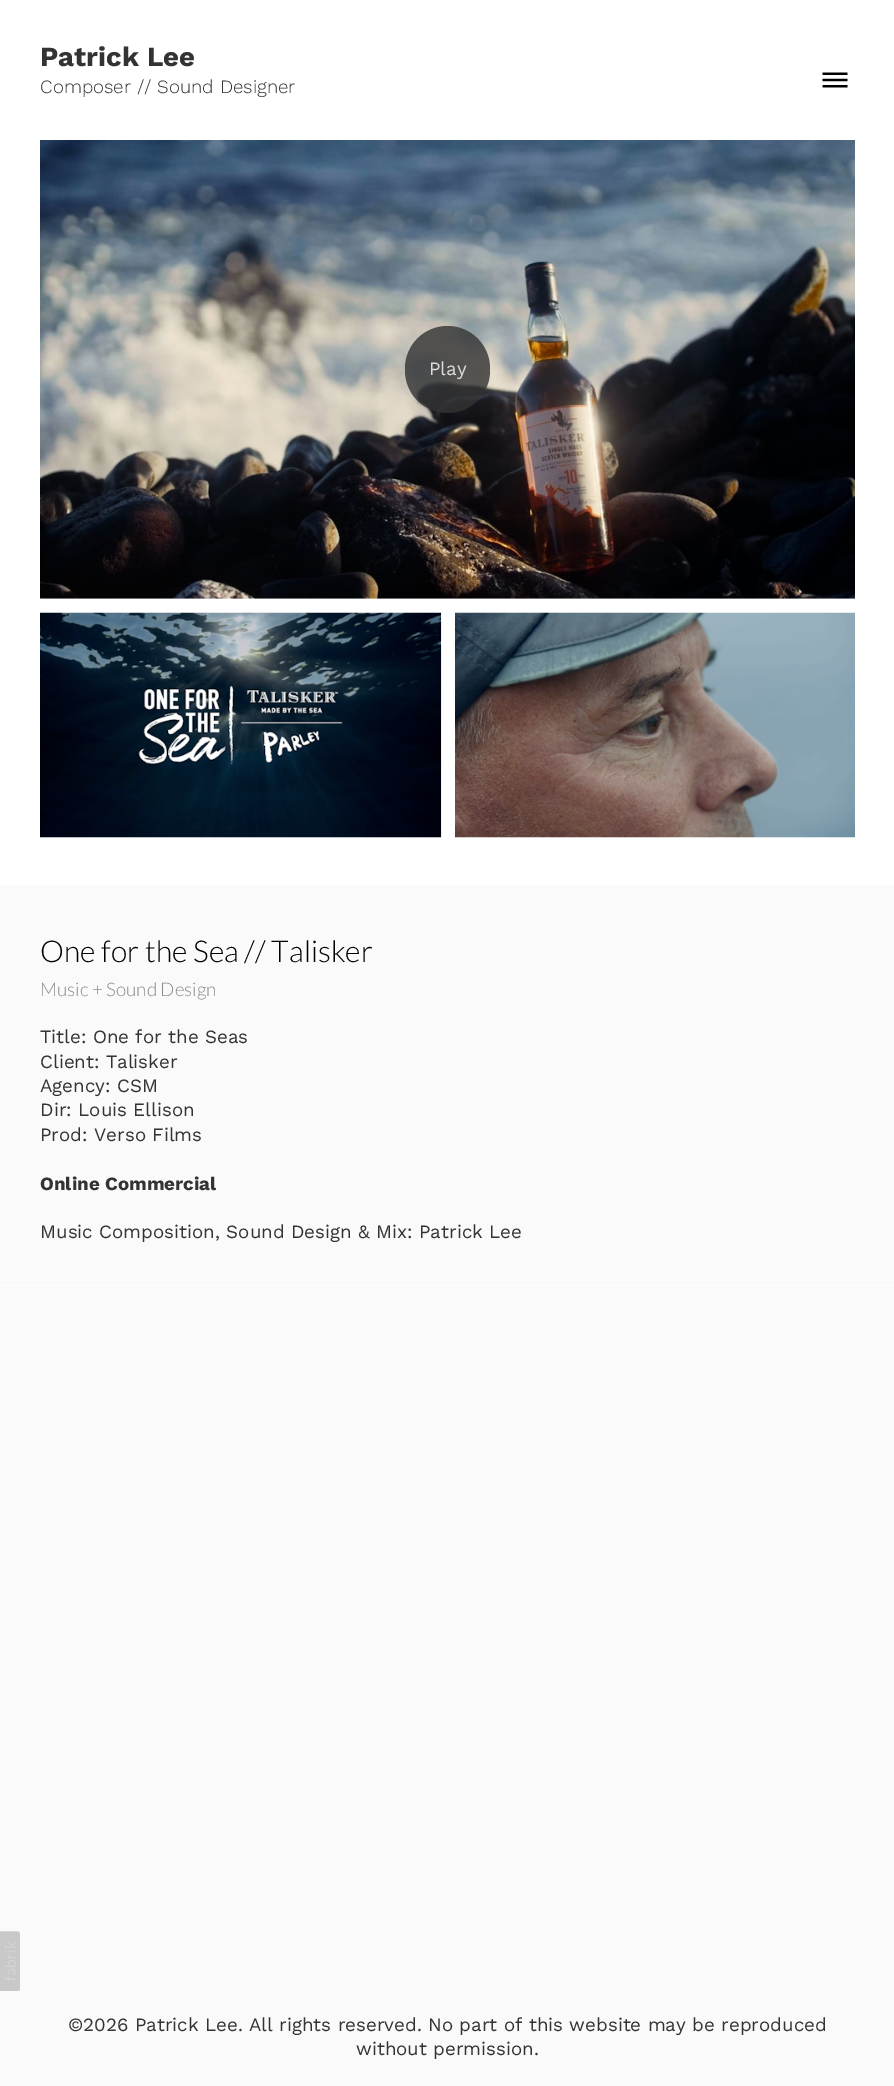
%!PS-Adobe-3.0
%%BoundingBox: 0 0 894 2086
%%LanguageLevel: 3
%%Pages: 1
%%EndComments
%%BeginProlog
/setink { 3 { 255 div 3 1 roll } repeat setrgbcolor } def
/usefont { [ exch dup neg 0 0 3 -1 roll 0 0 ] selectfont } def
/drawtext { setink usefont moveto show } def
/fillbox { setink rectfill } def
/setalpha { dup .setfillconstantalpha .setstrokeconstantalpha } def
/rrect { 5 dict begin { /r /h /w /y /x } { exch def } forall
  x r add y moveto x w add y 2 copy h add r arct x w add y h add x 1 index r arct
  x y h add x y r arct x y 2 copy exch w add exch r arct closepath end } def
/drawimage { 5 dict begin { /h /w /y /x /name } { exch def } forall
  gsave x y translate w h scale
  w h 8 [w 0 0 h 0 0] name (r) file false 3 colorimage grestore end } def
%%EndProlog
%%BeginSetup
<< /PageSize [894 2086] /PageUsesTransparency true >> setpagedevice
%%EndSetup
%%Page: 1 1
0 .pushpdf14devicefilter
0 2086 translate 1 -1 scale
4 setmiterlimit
0 0 894 2086 250 250 250 fillbox
(assets/img1.rgb) 0 1931 20 60 drawimage
0 0 894 885 255 255 255 fillbox
(Patrick Lee) 40 66 /WorkSans-Bold 27.5 51 51 51 drawtext
(Composer // Sound Designer) 40 93 /WorkSans-Light 18.75 51 51 51 drawtext
(assets/img2.rgb) 822 72 26 16 drawimage
40 598 815 1 250 250 250 fillbox
(assets/img3.rgb) 40 140 815 459 drawimage
0.8 setalpha
51 51 51 setink
405 326 85 87 42.5 rrect fill
1 setalpha
(Play) 429 375 /WorkSans-Regular 18.75 220 220 219 drawtext
40 837 401 1 250 250 250 fillbox
(assets/img4.rgb) 40 612 402 226 drawimage
455 837 400 1 250 250 250 fillbox
(assets/img5.rgb) 455 612 400 226 drawimage
0 1285 894 1 255 255 255 fillbox
(One for the Sea // Talisker) 40 962 /Lato-Light 30 0 0 0 drawtext
(Music + Sound Design) 40 996 /Lato-Light 18.75 138 138 138 drawtext
(Title: One for the Seas) 40 1043 /WorkSans-Regular 18.75 51 51 51 drawtext
(Client: Talisker) 40 1068 /WorkSans-Regular 18.75 51 51 51 drawtext
(Agency: CSM) 40 1092 /WorkSans-Regular 18.75 51 51 51 drawtext
(Dir: Louis Ellison) 40 1116 /WorkSans-Regular 18.75 51 51 51 drawtext
(Prod: Verso Films) 40 1141 /WorkSans-Regular 18.75 51 51 51 drawtext
(Online Commercial) 40 1190 /WorkSans-Bold 18.75 51 51 51 drawtext
(Music Composition, Sound Design & Mix: Patrick Lee) 40 1238 /WorkSans-Regular 18.75 51 51 51 drawtext
(©2026 Patrick Lee. All rights reserved. No part of this website may be reproduced) 68 2031 /WorkSans-Regular 18.75 51 51 51 drawtext
(without permission.) 356 2055 /WorkSans-Regular 18.75 51 51 51 drawtext
.poppdf14devicefilter showpage
%%EOF
